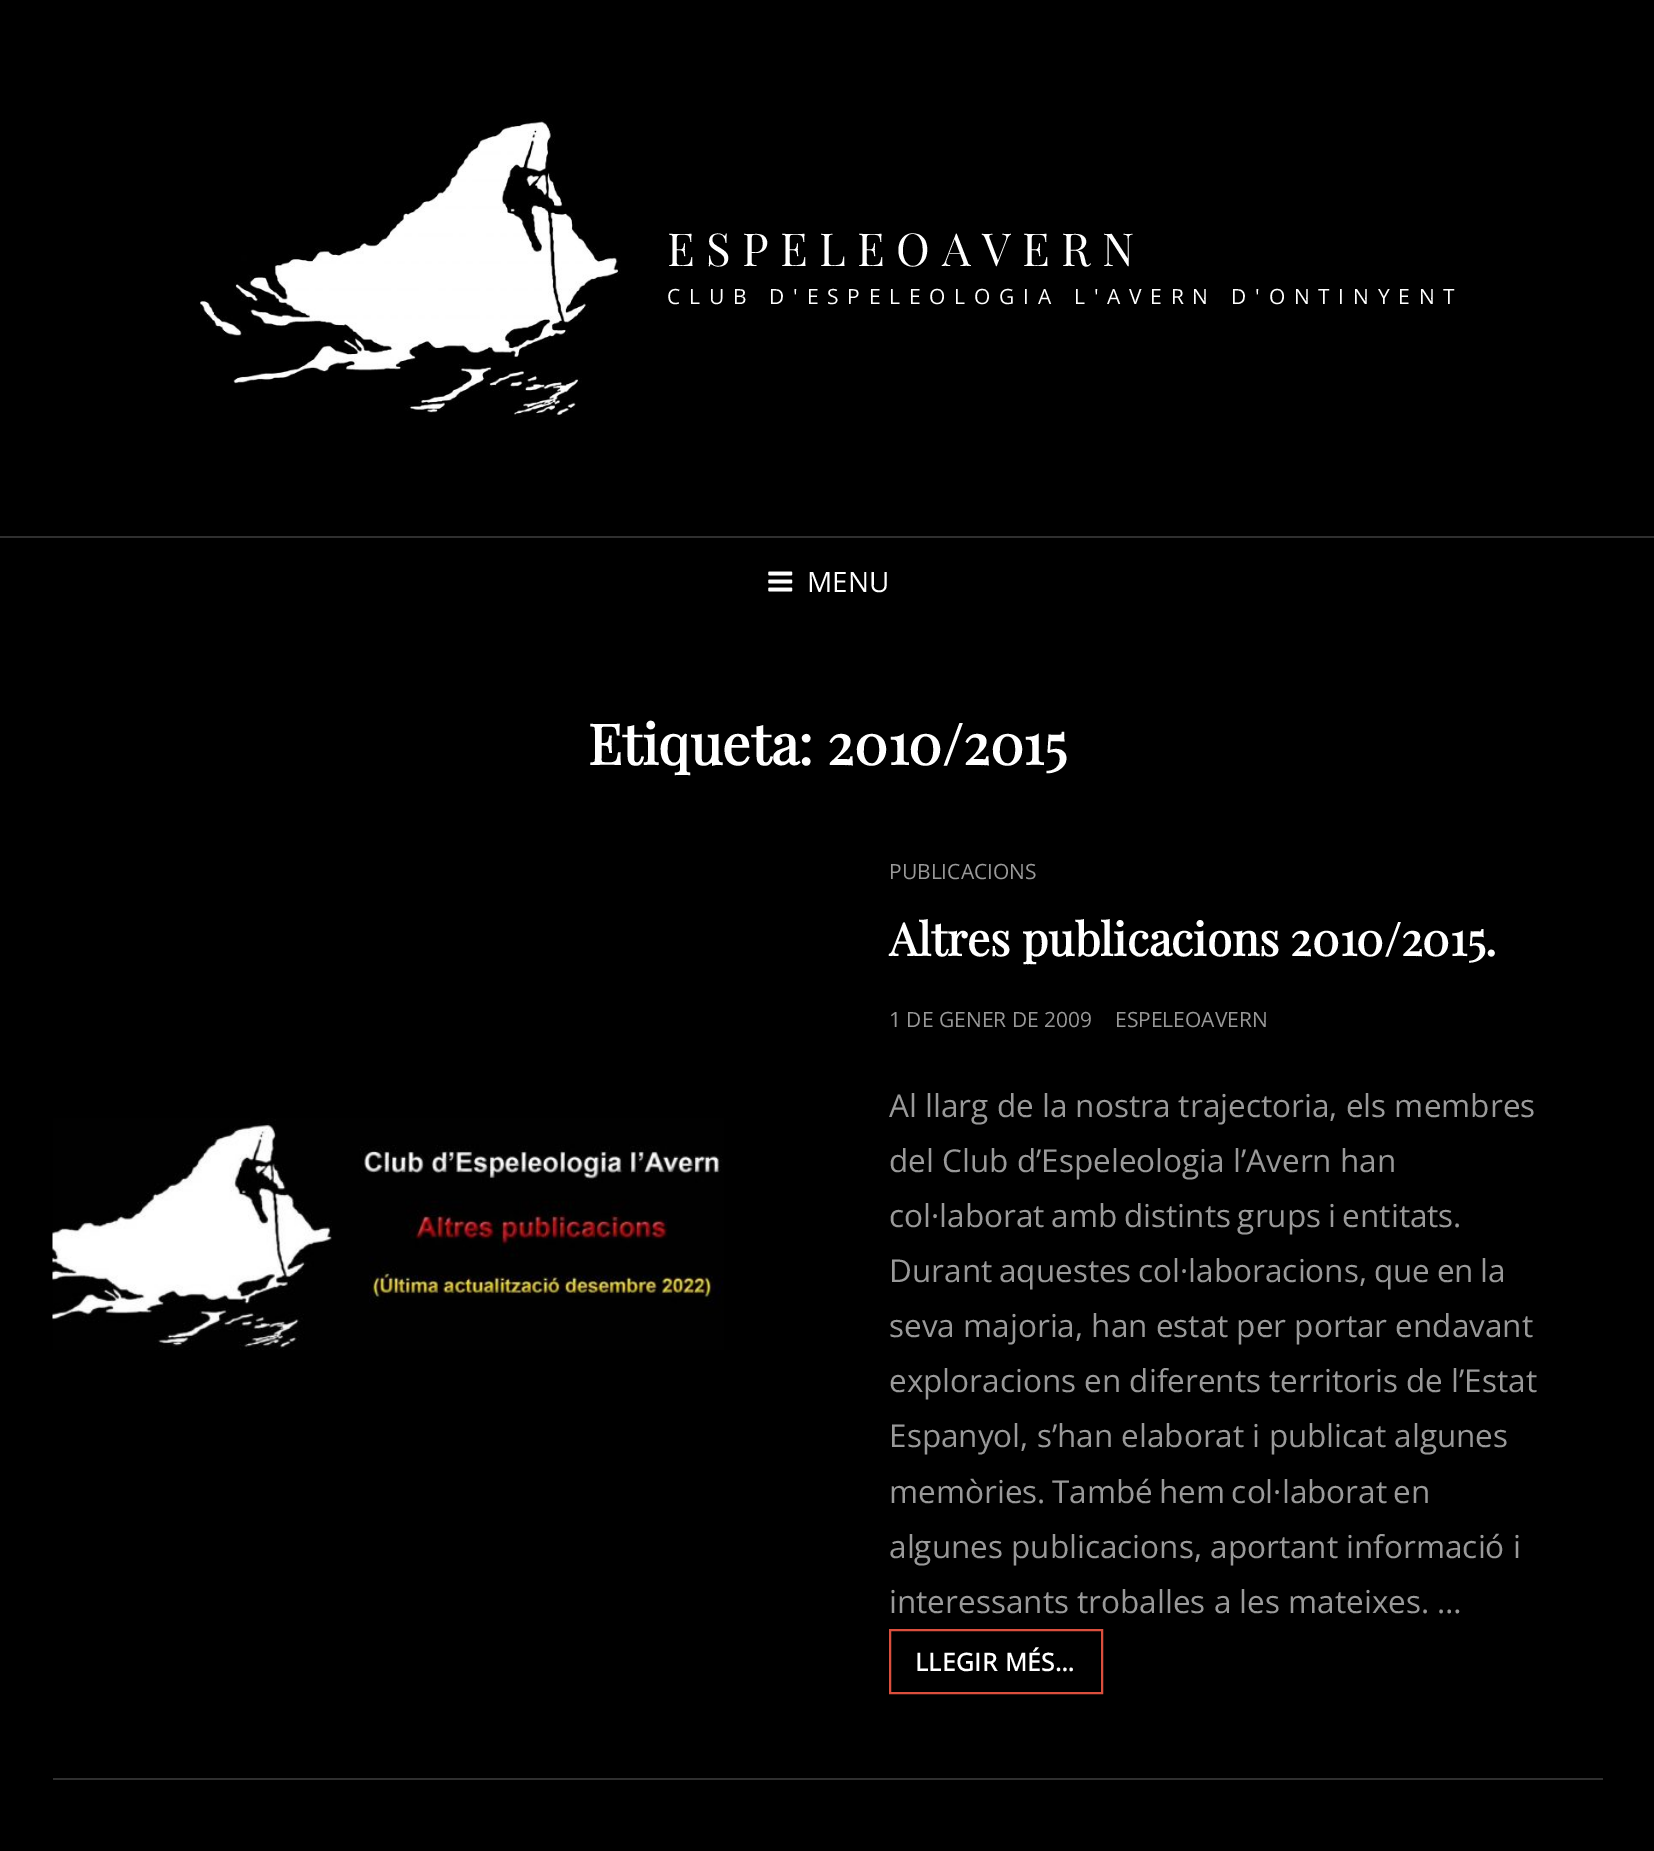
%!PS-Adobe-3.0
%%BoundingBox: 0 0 1654 1851
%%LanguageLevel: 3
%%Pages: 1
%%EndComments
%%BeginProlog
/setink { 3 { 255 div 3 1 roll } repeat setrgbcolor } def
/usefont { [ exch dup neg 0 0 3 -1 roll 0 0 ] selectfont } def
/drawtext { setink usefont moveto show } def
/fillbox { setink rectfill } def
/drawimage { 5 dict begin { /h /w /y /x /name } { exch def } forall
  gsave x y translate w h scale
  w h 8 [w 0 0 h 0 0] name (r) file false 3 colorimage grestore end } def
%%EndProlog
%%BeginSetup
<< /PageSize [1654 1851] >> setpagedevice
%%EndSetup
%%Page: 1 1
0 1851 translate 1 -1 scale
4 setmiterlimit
0 0 1654 1851 0 0 0 fillbox
(assets/img1.rgb) 200 118 421 299 drawimage
/PlayfairDisplay-Regular 45.5 usefont
255 255 255 setink
667 266 moveto 11.4 0 (ESPELEOAVERN) ashow
/OpenSans-Regular 21 usefont
667 304 moveto 8.75 0 (CLUB D'ESPELEOLOGIA L'AVERN D'ONTINYENT) ashow
0 536 1654 2 47 47 47 fillbox
(assets/img2.rgb) 768 571 25 21 drawimage
(MENU) 807 592 /OpenSans-Regular 28 255 255 255 drawtext
(Etiqueta: 2010/2015) 588 765 /PlayfairDisplay-Bold 56 255 255 255 drawtext
53 1778 1550 2 47 47 47 fillbox
(assets/img3.rgb) 52 1118 672 232 drawimage
(PUBLICACIONS) 889 879 /OpenSans-Regular 21 153 153 153 drawtext
(Altres publicacions 2010/2015.) 889 956 /PlayfairDisplay-Bold 45.5 255 255 255 drawtext
(1 DE GENER DE 2009) 889 1027 /OpenSans-Regular 21 153 153 153 drawtext
(ESPELEOAVERN) 1115 1027 /OpenSans-Regular 21 153 153 153 drawtext
(Al llarg de la nostra trajectoria, els membres) 889 1117 /OpenSans-Regular 31.5 153 153 153 drawtext
(del Club d’Espeleologia l’Avern han) 889 1172 /OpenSans-Regular 31.5 153 153 153 drawtext
889 1227 moveto -1.5 0 32 (col·laborat amb distints grups i entitats.) widthshow
889 1282 moveto -1.5 0 32 (Durant aquestes col·laboracions, que en la) widthshow
(seva majoria, han estat per portar endavant) 889 1337 /OpenSans-Regular 31.5 153 153 153 drawtext
(exploracions en diferents territoris de l’Estat) 889 1392 /OpenSans-Regular 31.5 153 153 153 drawtext
(Espanyol, s’han elaborat i publicat algunes) 889 1447 /OpenSans-Regular 31.5 153 153 153 drawtext
889 1503 moveto -2 0 32 (memòries. També hem col·laborat en) widthshow
(algunes publicacions, aportant informació i) 889 1558 /OpenSans-Regular 31.5 153 153 153 drawtext
(interessants troballes a les mateixes. …) 889 1613 /OpenSans-Regular 31.5 153 153 153 drawtext
219 79 61 setink
2 setlinewidth
890 1630 212 63 rectstroke
/OpenSans-Bold 24.5 usefont
255 255 255 setink
915 1671 moveto 0.6 0 (LLEGIR MÉS…) ashow
showpage
%%EOF
